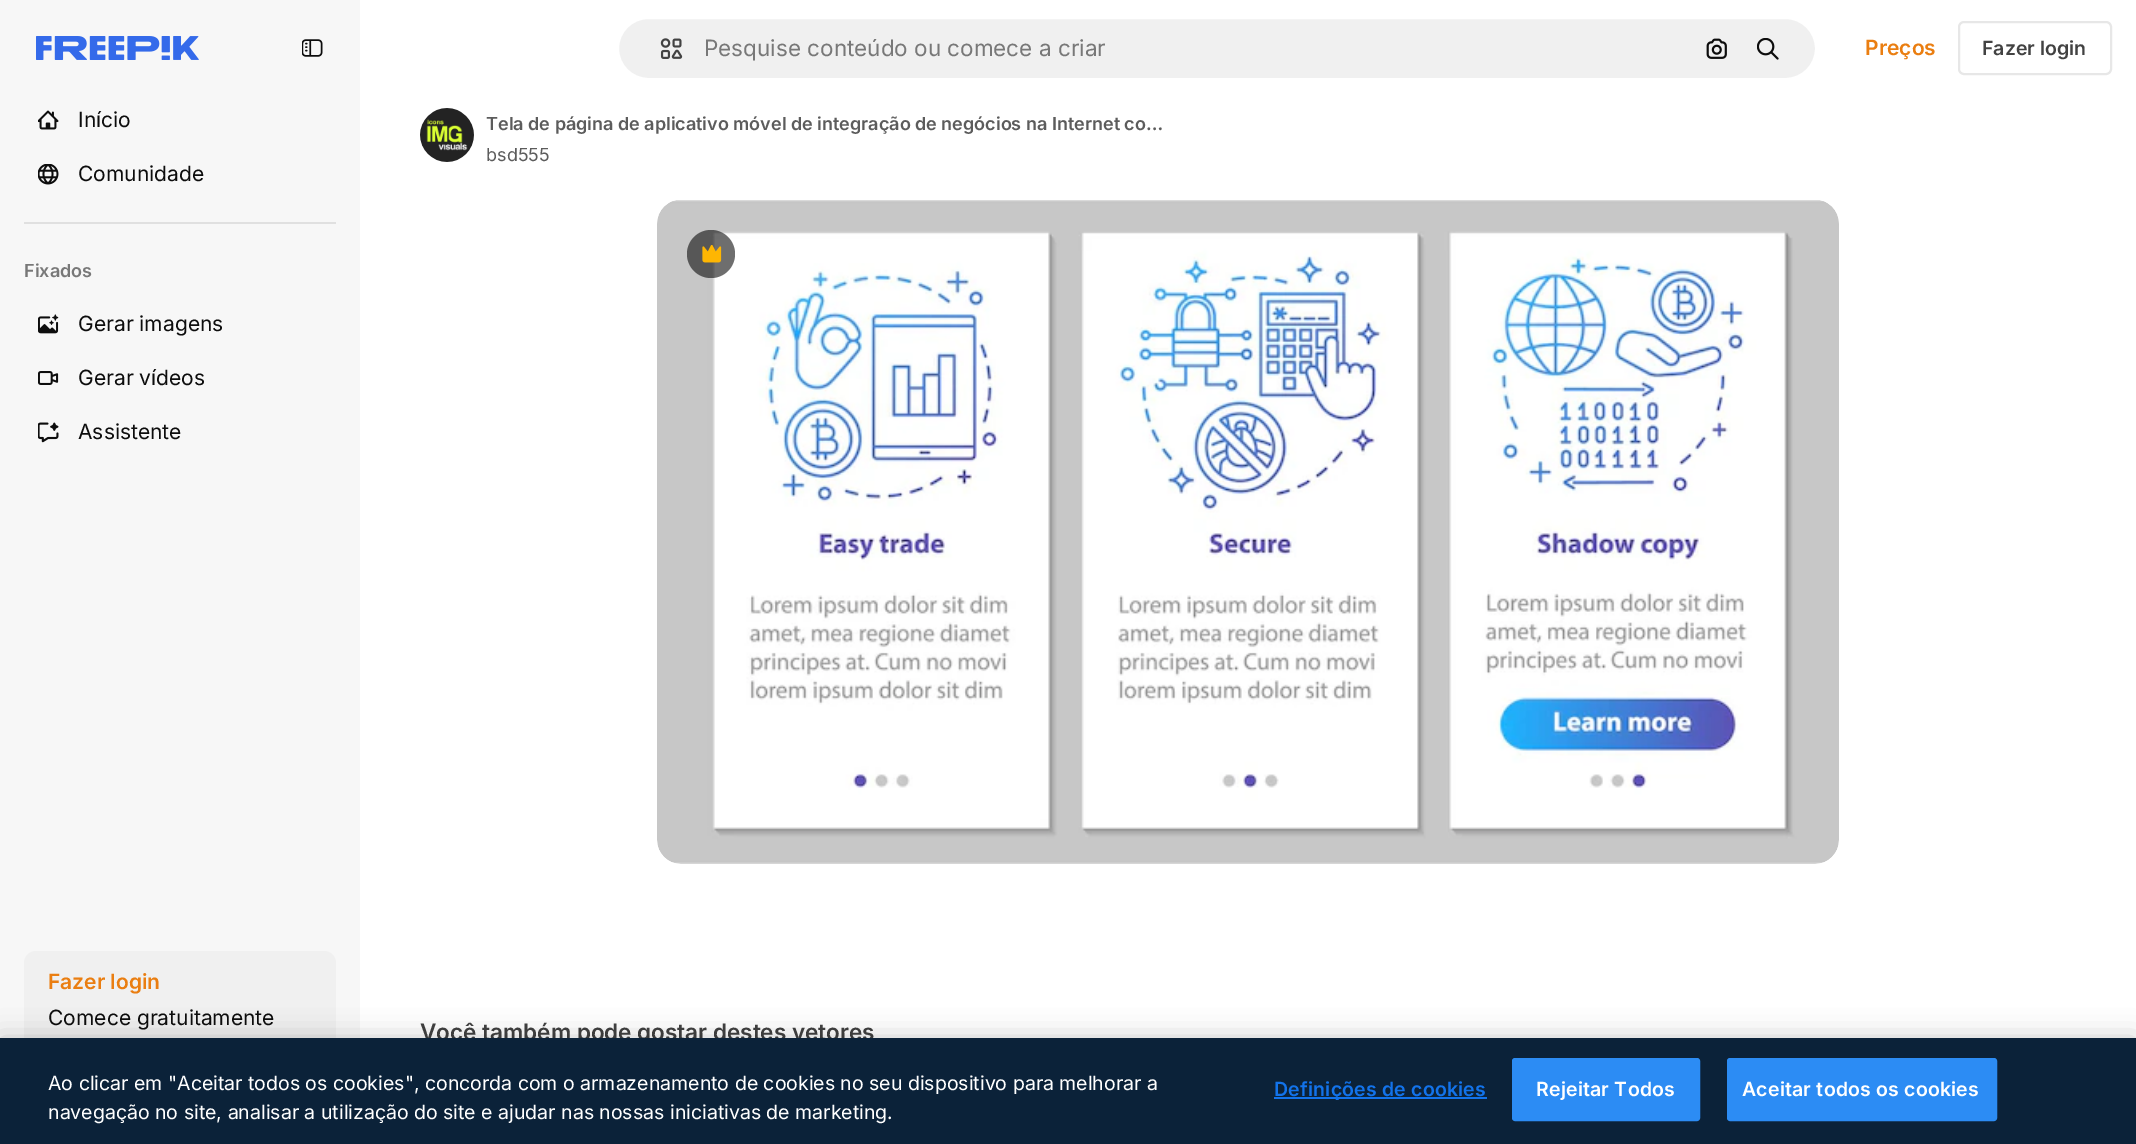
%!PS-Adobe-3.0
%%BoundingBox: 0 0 2136 1144
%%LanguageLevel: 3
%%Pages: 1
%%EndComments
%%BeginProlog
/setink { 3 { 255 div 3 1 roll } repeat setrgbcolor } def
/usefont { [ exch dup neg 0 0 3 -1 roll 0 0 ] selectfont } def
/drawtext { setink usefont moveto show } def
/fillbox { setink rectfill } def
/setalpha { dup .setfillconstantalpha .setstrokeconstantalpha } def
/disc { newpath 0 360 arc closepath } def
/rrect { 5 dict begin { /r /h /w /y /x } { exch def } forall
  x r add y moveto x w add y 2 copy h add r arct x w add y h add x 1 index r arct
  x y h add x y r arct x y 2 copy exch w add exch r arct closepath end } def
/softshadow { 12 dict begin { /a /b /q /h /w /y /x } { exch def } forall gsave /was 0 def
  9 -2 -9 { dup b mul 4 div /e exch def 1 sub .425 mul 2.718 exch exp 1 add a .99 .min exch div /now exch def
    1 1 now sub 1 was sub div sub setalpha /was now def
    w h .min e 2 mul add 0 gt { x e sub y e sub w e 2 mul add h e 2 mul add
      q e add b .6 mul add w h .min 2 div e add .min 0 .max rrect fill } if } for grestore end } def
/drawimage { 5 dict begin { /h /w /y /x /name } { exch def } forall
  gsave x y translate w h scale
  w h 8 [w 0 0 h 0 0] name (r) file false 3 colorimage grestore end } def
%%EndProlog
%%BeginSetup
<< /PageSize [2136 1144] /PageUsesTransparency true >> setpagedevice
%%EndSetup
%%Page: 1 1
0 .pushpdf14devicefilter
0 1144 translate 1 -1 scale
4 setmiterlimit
0 0 2136 1144 255 255 255 fillbox
0 0 360 1038 247 247 247 fillbox
(assets/img1.rgb) 36 36 163 24 drawimage
(assets/img2.rgb) 302 39 21 18 drawimage
(assets/img3.rgb) 38 110 21 20 drawimage
(Início) 78 127 /Inter-Regular 21 13 13 13 drawtext
(assets/img4.rgb) 38 164 21 21 drawimage
(Comunidade) 78 181 /Inter-Regular 21 13 13 13 drawtext
24 222 312 2 224 224 224 fillbox
(Fixados) 24 277 /Inter-SemiBold 18 120 120 120 drawtext
(assets/img5.rgb) 38 314 21 20 drawimage
(Gerar imagens) 78 331 /Inter-Regular 21 13 13 13 drawtext
(assets/img6.rgb) 38 371 21 14 drawimage
(Gerar vídeos) 78 385 /Inter-Regular 21 13 13 13 drawtext
(assets/img7.rgb) 38 422 21 21 drawimage
(Assistente) 78 439 /Inter-Regular 21 13 13 13 drawtext
240 240 240 setink
24 951 312 98 12 rrect fill
(Fazer login) 48 989 /Inter-SemiBold 21 234 126 17 drawtext
(Comece gratuitamente) 48 1025 /Inter-Regular 21 13 13 13 drawtext
240 240 240 setink
618 18 1198 61 30.5 rrect gsave fill grestore
255 255 255 setink
2 setlinewidth
stroke
(assets/img8.rgb) 660 38 23 21 drawimage
(Pesquise conteúdo ou comece a criar) 704 56 /Inter-Regular 22.5 120 120 120 drawtext
(assets/img9.rgb) 1706 38 21 21 drawimage
(assets/img10.rgb) 1757 38 22 22 drawimage
(Preços) 1865 55 /Inter-SemiBold 21 234 126 17 drawtext
231 231 231 setink
1959 22 152 52 5 rrect stroke
(Fazer login) 1982 55 /Inter-SemiBold 19.5 66 66 66 drawtext
(assets/img11.rgb) 420 108 54 54 drawimage
(Tela de página de aplicativo móvel de integração de negócios na Internet co…) 486 130 /Inter-SemiBold 18 92 92 92 drawtext
(bsd555) 486 161 /Inter-Regular 18 92 92 92 drawtext
(assets/img12.rgb) 657 200 1182 664 drawimage
0.6 setalpha
13 13 13 setink
711 254 24 disc fill
1 setalpha
(assets/img13.rgb) 702 245 20 18 drawimage
(Você também pode gostar destes vetores) 420 1040 /Inter-SemiBold 22.5 66 66 66 drawtext
0 0 0 setink
0 1038 2136 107 0 13.5 0.2 softshadow
0 1038 2136 106 11 34 57 fillbox
(Ao clicar em "Aceitar todos os cookies", concorda com o armazenamento de cookies no seu dispositivo para melhorar a) 48 1090 /Inter-Regular 19.5 255 255 255 drawtext
(navegação no site, analisar a utilização do site e ajudar nas nossas iniciativas de marketing.) 48 1119 /Inter-Regular 19.5 255 255 255 drawtext
1274 1097 213 2 18 115 235 fillbox
/Inter-SemiBold 19.5 usefont
1274 1096 moveto 0.2 0 (Definições de cookies) ashow
44 140 244 setink
1513 1059 186 61 2 rrect gsave fill grestore
stroke
255 255 255 setink
1536 1096 moveto 0.2 0 (Rejeitar Todos) ashow
44 140 244 setink
1728 1059 268 61 2 rrect gsave fill grestore
stroke
255 255 255 setink
1742 1096 moveto 0.2 0 (Aceitar todos os cookies) ashow
.poppdf14devicefilter showpage
%%EOF
